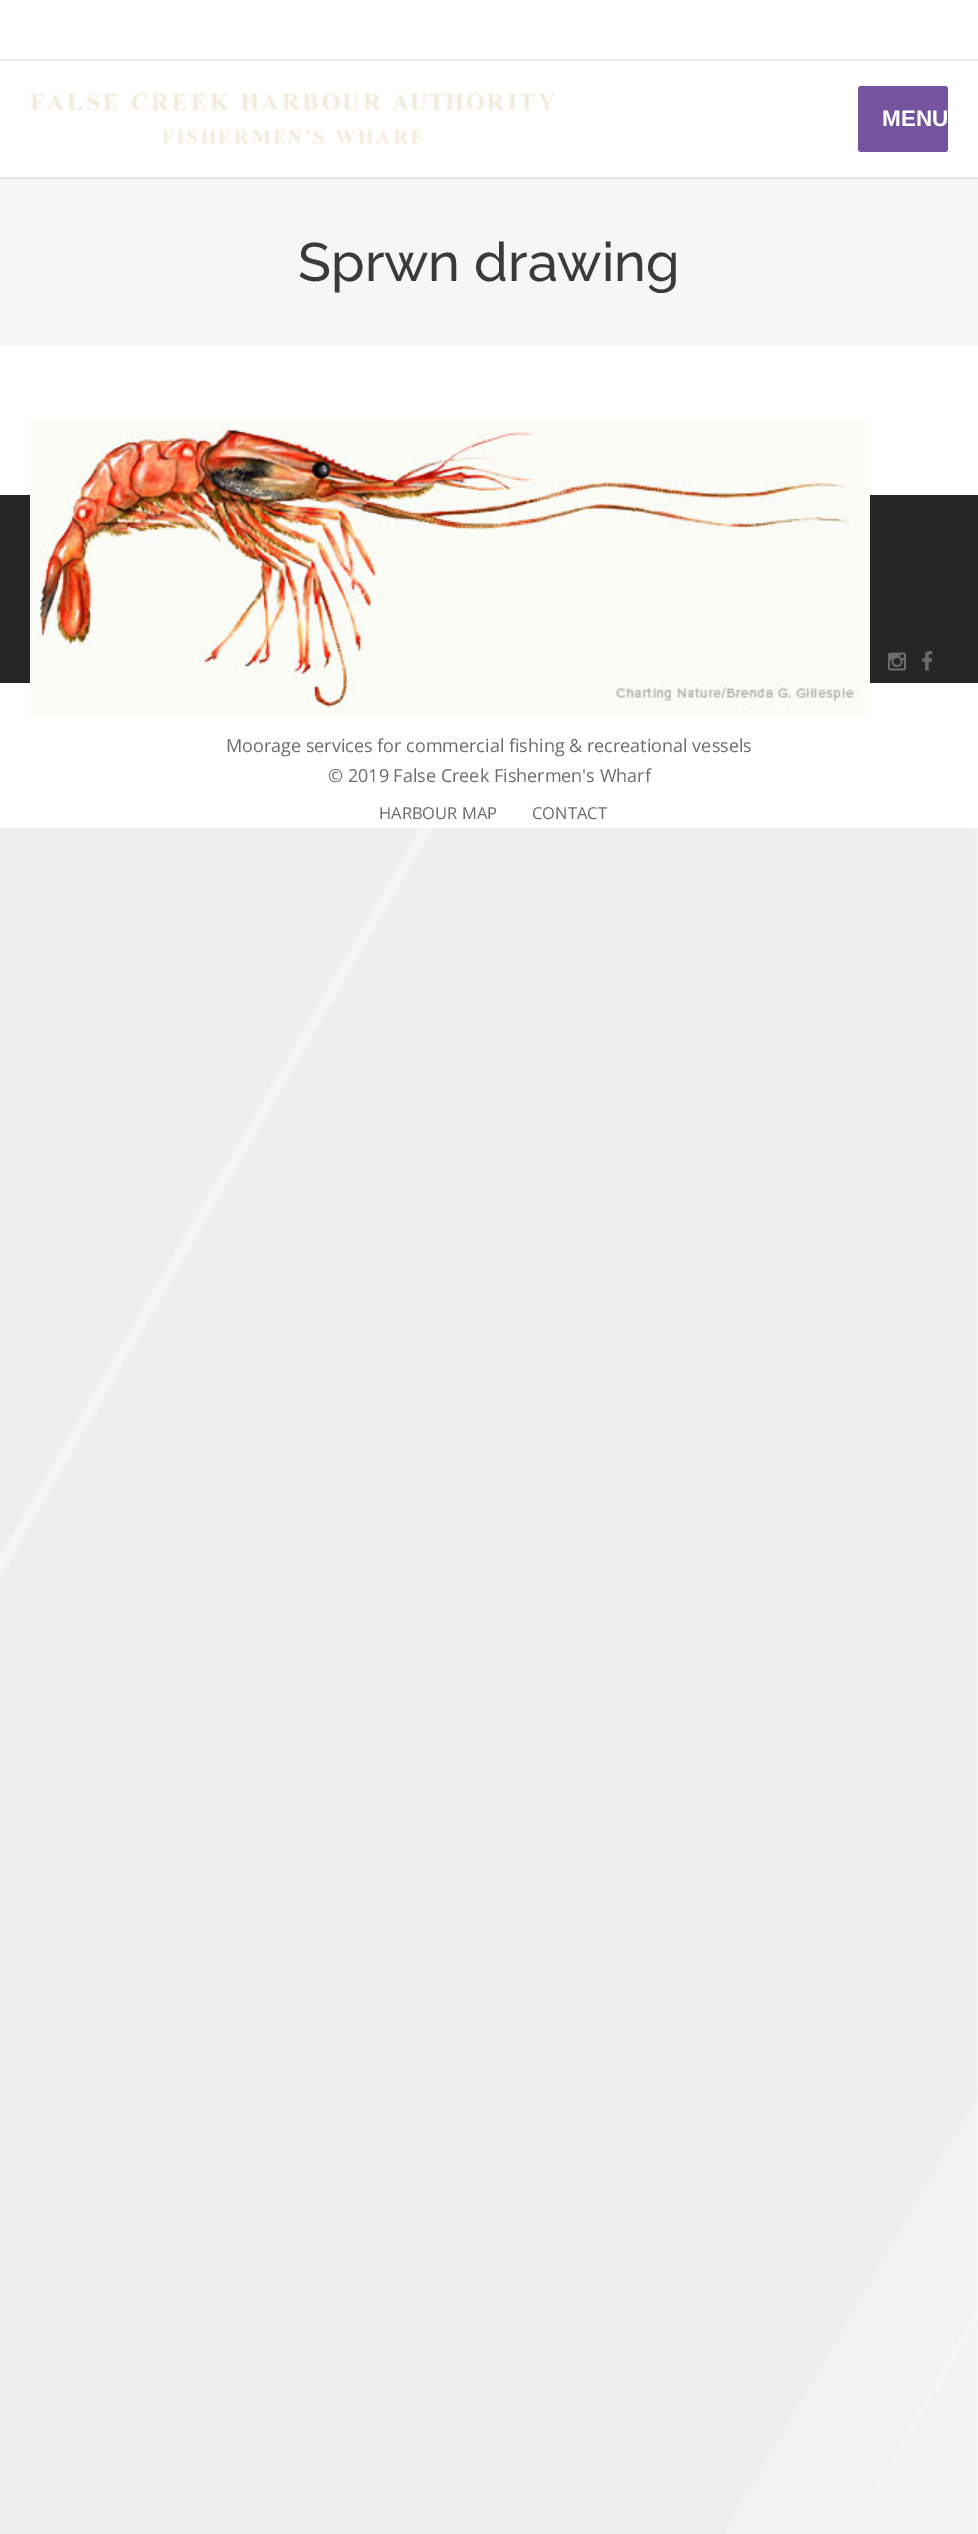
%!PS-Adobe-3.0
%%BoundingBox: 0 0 978 2534
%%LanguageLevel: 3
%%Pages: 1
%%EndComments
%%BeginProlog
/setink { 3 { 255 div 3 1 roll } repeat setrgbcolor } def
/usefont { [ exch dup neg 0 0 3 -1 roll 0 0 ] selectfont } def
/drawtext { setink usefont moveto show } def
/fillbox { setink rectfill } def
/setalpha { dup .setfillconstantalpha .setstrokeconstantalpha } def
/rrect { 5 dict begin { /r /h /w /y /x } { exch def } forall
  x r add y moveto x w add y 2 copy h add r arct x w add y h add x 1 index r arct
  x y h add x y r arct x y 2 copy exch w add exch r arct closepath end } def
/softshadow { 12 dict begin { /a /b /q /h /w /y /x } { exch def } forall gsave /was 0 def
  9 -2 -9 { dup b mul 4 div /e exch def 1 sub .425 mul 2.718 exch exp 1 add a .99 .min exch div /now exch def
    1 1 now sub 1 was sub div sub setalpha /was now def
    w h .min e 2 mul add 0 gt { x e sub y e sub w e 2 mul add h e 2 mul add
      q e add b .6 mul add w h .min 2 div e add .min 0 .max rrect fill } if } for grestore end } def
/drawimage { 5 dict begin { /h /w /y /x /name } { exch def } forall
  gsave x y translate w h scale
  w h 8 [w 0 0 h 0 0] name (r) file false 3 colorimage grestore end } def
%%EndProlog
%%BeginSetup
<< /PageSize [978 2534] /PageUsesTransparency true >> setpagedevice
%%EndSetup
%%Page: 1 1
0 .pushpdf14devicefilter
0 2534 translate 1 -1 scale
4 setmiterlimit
0 0 978 2534 255 255 255 fillbox
(assets/img1.rgb) 0 828 978 1706 drawimage
0 177 978 168 246 246 246 fillbox
gsave
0 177 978 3 rectclip
0 0 0 setink
0 0 978 177 0 3 0.15 softshadow
grestore
0 59 978 2 237 237 237 fillbox
(assets/img2.rgb) 30 93 525 51 drawimage
117 83 158 setink
858 86 90 66 3 rrect fill
(MENU) 882 126 /LiberationSans-Bold 22.5 255 255 255 drawtext
(Sprwn drawing) 298 281 /Raleway-Medium 54 58 58 58 drawtext
0 495 978 188 38 38 38 fillbox
(assets/img3.rgb) 30 420 840 296 drawimage
(Moorage services for commercial fishing & recreational vessels) 226 752 /OpenSans-Regular 18 107 107 107 drawtext
(© 2019 False Creek Fishermen's Wharf) 328 782 /OpenSans-Regular 18 107 107 107 drawtext
(assets/img4.rgb) 888 652 18 19 drawimage
(assets/img5.rgb) 922 651 11 20 drawimage
(HARBOUR MAP) 379 819 /OpenSans-Regular 16.5 107 107 107 drawtext
(CONTACT) 532 819 /OpenSans-Regular 16.5 107 107 107 drawtext
.poppdf14devicefilter showpage
%%EOF
